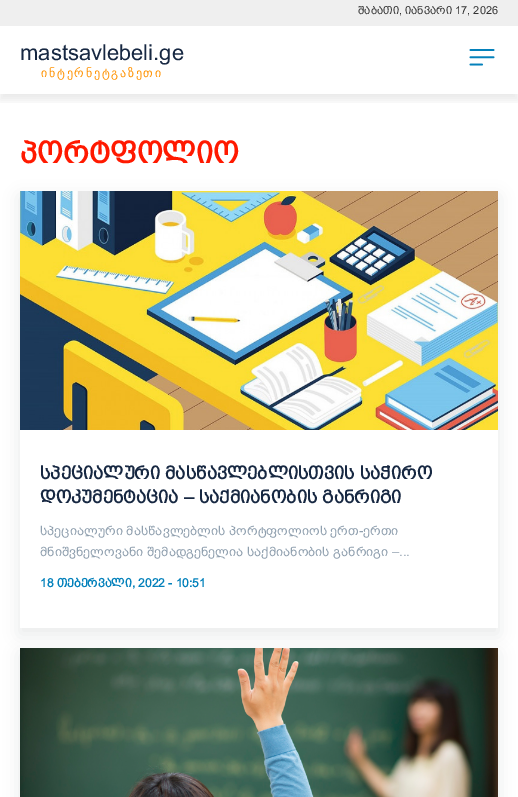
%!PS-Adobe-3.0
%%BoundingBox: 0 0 518 797
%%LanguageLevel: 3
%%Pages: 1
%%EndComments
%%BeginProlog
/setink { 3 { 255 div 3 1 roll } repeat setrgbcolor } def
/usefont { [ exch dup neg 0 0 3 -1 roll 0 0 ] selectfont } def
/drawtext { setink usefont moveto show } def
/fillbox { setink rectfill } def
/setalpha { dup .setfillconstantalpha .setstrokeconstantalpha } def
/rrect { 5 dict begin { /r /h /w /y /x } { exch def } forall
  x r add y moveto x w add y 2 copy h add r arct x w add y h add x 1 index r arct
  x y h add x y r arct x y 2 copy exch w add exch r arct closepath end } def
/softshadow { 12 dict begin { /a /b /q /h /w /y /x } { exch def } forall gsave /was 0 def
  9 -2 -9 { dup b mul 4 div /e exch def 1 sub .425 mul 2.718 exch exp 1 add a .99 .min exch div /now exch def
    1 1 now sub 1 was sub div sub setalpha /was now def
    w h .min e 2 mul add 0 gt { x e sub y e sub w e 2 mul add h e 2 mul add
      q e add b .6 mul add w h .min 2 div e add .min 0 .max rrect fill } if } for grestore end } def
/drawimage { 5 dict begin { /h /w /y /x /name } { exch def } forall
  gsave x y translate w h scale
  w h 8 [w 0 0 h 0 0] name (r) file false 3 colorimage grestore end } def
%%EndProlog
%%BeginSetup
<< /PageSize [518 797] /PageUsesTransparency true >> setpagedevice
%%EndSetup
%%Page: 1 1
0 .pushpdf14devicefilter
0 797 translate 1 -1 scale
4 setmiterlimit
0 0 518 797 255 255 255 fillbox
0 0 518 26 239 239 239 fillbox
(assets/img1.rgb) 469 49 26 17 drawimage
gsave
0 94 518 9 rectclip
0 0 0 setink
0 6 518 94 0 4 0.08 softshadow
grestore
(შაბათი, იანვარი 17, 2026) 358 14 /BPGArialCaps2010-Regular 11 51 51 51 drawtext
(mastsavlebeli.ge) 20 60 /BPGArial-Regular 22 23 40 66 drawtext
/DejaVuSans-Regular 12 usefont
255 149 8 setink
41 77 moveto 1.75 0 (ინტერნეტგაზეთი) ashow
(პორტფოლიო) 20 163 /BPGArialCaps2010-Bold 30 255 25 0 drawtext
gsave
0 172 moveto 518 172 lineto 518 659 lineto 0 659 lineto closepath 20 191 moveto 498 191 lineto 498 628 lineto 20 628 lineto closepath eoclip newpath
22 35 58 setink
20 197 478 437 0 8 0.1 softshadow
grestore
(assets/img2.rgb) 20 191 478 239 drawimage
(სპეციალური მასწავლებლისთვის საჭირო) 40 479 /BPGArialCaps2010-Bold 18 23 40 66 drawtext
(დოკუმენტაცია – საქმიანობის განრიგი) 40 503 /BPGArialCaps2010-Bold 18 23 40 66 drawtext
(სპეციალური მასწავლებლის პორტფოლიოს ერთ-ერთი) 40 535 /BPGArial-Regular 13 144 160 175 drawtext
(მნიშვნელოვანი შემადგენელია საქმიანობის განრიგი –...) 40 556 /BPGArial-Regular 13 144 160 175 drawtext
(18 თებერვალი, 2022 - 10:51) 40 587 /BPGArialCaps2010-Bold 12 4 129 187 drawtext
22 35 58 setink
20 654 478 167 0 8 0.1 softshadow
(assets/img3.rgb) 20 648 478 149 drawimage
.poppdf14devicefilter showpage
%%EOF
